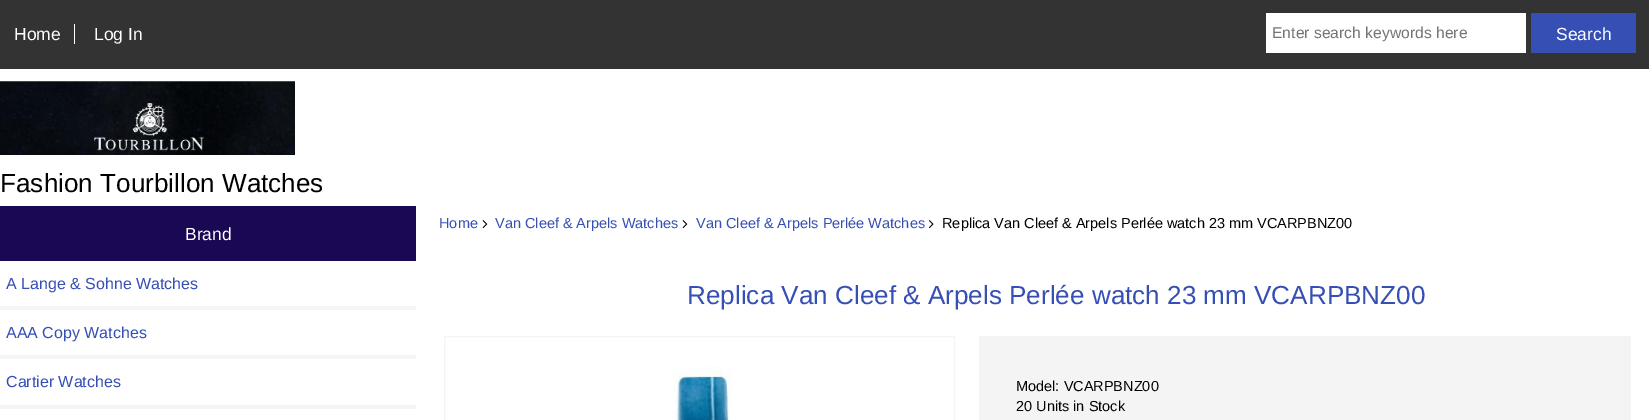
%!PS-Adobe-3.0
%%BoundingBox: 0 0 1649 420
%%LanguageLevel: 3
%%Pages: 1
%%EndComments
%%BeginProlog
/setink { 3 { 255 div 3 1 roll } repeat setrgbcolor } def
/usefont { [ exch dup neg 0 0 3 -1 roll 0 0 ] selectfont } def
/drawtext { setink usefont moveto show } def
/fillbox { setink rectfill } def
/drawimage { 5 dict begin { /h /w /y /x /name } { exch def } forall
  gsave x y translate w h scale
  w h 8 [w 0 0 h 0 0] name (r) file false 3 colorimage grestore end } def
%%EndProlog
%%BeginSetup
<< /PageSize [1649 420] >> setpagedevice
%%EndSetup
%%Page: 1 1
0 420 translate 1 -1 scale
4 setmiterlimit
0 0 1649 420 255 255 255 fillbox
0 0 1649 69 51 51 51 fillbox
(Home) 14 40 /LiberationSans-Regular 17.5 255 255 255 drawtext
74 24 1 20 255 255 255 fillbox
(Log In) 94 40 /LiberationSans-Regular 17.5 255 255 255 drawtext
1266 13 260 40 255 255 255 fillbox
(Enter search keywords here) 1272 38 /LiberationSans-Regular 15.7 117 117 117 drawtext
1531 13 105 40 54 79 181 fillbox
(Search) 1556 40 /LiberationSans-Regular 17.5 255 255 255 drawtext
(assets/img1.rgb) 0 81 295 74 drawimage
(Fashion Tourbillon Watches) 0 192 /LiberationSans-Regular 26.1 0 0 0 drawtext
0 206 416 55 27 8 85 fillbox
(Brand) 185 240 /LiberationSans-Regular 17.5 255 255 255 drawtext
0 306 416 4 245 245 245 fillbox
(A Lange & Sohne Watches) 6 289 /LiberationSans-Regular 16 54 79 181 drawtext
0 355 416 4 245 245 245 fillbox
(AAA Copy Watches) 6 338 /LiberationSans-Regular 16 54 79 181 drawtext
0 405 416 4 245 245 245 fillbox
(Cartier Watches) 6 387 /LiberationSans-Regular 16 54 79 181 drawtext
(Home) 439 228 /LiberationSans-Regular 14.5 54 79 181 drawtext
(assets/img2.rgb) 482 220 6 9 drawimage
(Van Cleef & Arpels Watches) 495 228 /LiberationSans-Regular 14.5 54 79 181 drawtext
(assets/img2.rgb) 682 220 6 9 drawimage
(Van Cleef & Arpels Perlée Watches) 696 228 /LiberationSans-Regular 14.5 54 79 181 drawtext
(assets/img3.rgb) 928 220 6 9 drawimage
(Replica Van Cleef & Arpels Perlée watch 23 mm VCARPBNZ00) 942 228 /LiberationSans-Regular 14.5 0 0 0 drawtext
(Replica Van Cleef & Arpels Perlée watch 23 mm VCARPBNZ00) 687 304 /LiberationSans-Regular 26.1 54 79 181 drawtext
245 245 245 setink
444.5 336.5 510 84 rectstroke
(assets/img4.rgb) 674 366 58 54 drawimage
979 336 652 84 244 244 244 fillbox
(Model: VCARPBNZ00) 1016 391 /LiberationSans-Regular 14.5 0 0 0 drawtext
(20 Units in Stock) 1016 411 /LiberationSans-Regular 14.5 0 0 0 drawtext
showpage
%%EOF
